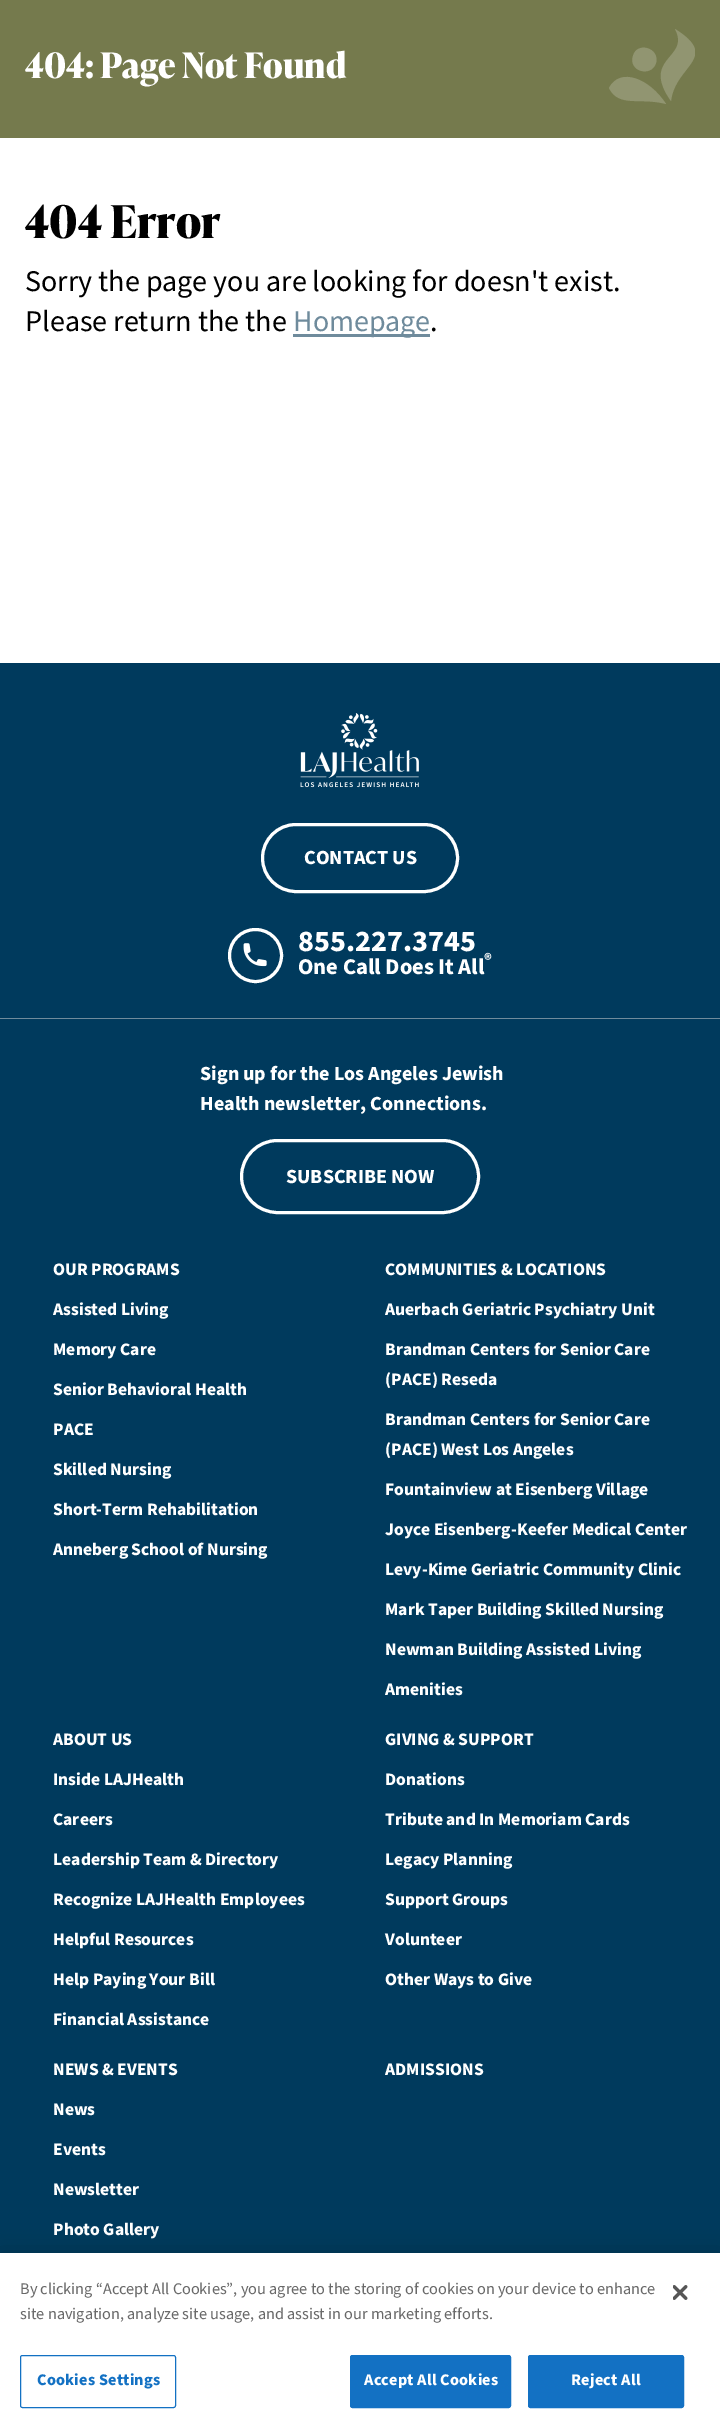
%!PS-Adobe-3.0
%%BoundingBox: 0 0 720 2435
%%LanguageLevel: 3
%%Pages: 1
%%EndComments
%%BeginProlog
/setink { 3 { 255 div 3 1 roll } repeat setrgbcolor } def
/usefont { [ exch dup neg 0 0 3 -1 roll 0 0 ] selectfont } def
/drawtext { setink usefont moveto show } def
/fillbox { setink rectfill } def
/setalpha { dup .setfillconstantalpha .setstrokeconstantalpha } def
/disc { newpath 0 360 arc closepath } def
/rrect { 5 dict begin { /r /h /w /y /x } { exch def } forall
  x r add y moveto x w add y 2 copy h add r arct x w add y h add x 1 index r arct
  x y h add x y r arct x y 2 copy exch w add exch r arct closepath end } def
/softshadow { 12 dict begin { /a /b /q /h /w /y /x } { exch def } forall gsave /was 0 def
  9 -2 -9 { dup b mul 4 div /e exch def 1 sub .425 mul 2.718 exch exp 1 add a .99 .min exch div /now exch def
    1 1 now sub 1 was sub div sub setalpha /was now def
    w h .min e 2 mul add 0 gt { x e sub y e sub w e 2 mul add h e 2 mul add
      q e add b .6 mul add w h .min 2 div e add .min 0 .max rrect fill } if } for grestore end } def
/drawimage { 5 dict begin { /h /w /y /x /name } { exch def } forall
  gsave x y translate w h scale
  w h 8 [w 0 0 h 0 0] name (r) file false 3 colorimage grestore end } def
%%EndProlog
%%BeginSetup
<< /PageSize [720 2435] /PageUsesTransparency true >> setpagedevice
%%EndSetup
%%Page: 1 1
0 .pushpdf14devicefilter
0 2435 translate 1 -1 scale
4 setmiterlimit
0 0 720 2435 255 255 255 fillbox
0 0 720 138 117 122 77 fillbox
(404: Page Not Found) 25 78 /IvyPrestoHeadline-Bold 35 255 255 255 drawtext
gsave
609 29 86 75 rectclip
145 149 113 setink
656 63 moveto 660 48 637 41 633 56 curveto 628 71 651 78 656 63 curveto 675 29 moveto 691 59 640 57 671 101 curveto 675 65 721 58 675 29 curveto 609 88 moveto 619 108 640 97 666 104 curveto 649 78 620 67 609 88 curveto fill
grestore
(404 Error) 25 238 /IvyPrestoHeadline-Bold 45 0 0 0 drawtext
(Sorry the page you are looking for doesn't exist.) 25 291 /SourceSansPro-Regular 30 0 0 0 drawtext
(Please return the the) 25 331 /SourceSansPro-Regular 30 0 0 0 drawtext
293 334 137 3 111 139 156 fillbox
(Homepage) 293 331 /SourceSansPro-Regular 30 111 139 156 drawtext
(.) 430 331 /SourceSansPro-Regular 30 0 0 0 drawtext
0 663 720 1590 0 58 93 fillbox
0 1018 720 1 111 139 156 fillbox
(assets/img1.rgb) 300 713 119 75 drawimage
255 255 255 setink
3 setlinewidth
262.5 824.5 195 67 33.5 rrect stroke
(CONTACT US) 304 864 /SourceSansPro-Bold 20 255 255 255 drawtext
255.5 955.5 26 disc stroke
(assets/img2.rgb) 243 943 24 24 drawimage
(855.227.3745) 298 951 /SourceSansPro-Bold 30 255 255 255 drawtext
(®) 484 965 /SourceSansPro-Bold 17 255 255 255 drawtext
(One Call Does It All) 298 974 /SourceSansPro-Bold 22.5 255 255 255 drawtext
(Sign up for the Los Angeles Jewish) 200 1080 /SourceSansPro-Bold 20 255 255 255 drawtext
(Health newsletter, Connections.) 200 1110 /SourceSansPro-Bold 20 255 255 255 drawtext
241.5 1140.5 237 72 36 rrect stroke
(SUBSCRIBE NOW) 286 1183 /SourceSansPro-Bold 20 255 255 255 drawtext
(OUR PROGRAMS) 53 1275 /SourceSansPro-Bold 17.5 255 255 255 drawtext
(Assisted Living) 53 1315 /SourceSansPro-Bold 17.5 255 255 255 drawtext
(Memory Care) 53 1355 /SourceSansPro-Bold 17.5 255 255 255 drawtext
(Senior Behavioral Health) 53 1395 /SourceSansPro-Bold 17.5 255 255 255 drawtext
(PACE) 53 1435 /SourceSansPro-Bold 17.5 255 255 255 drawtext
(Skilled Nursing) 53 1475 /SourceSansPro-Bold 17.5 255 255 255 drawtext
(Short-Term Rehabilitation) 53 1515 /SourceSansPro-Bold 17.5 255 255 255 drawtext
(Anneberg School of Nursing) 53 1555 /SourceSansPro-Bold 17.5 255 255 255 drawtext
(COMMUNITIES & LOCATIONS) 385 1275 /SourceSansPro-Bold 17.5 255 255 255 drawtext
(Auerbach Geriatric Psychiatry Unit) 385 1315 /SourceSansPro-Bold 17.5 255 255 255 drawtext
(Brandman Centers for Senior Care) 385 1355 /SourceSansPro-Bold 17.5 255 255 255 drawtext
(\(PACE\) Reseda) 385 1385 /SourceSansPro-Bold 17.5 255 255 255 drawtext
(Brandman Centers for Senior Care) 385 1425 /SourceSansPro-Bold 17.5 255 255 255 drawtext
(\(PACE\) West Los Angeles) 385 1455 /SourceSansPro-Bold 17.5 255 255 255 drawtext
(Fountainview at Eisenberg Village) 385 1495 /SourceSansPro-Bold 17.5 255 255 255 drawtext
(Joyce Eisenberg-Keefer Medical Center) 385 1535 /SourceSansPro-Bold 17.5 255 255 255 drawtext
(Levy-Kime Geriatric Community Clinic) 385 1575 /SourceSansPro-Bold 17.5 255 255 255 drawtext
(Mark Taper Building Skilled Nursing) 385 1615 /SourceSansPro-Bold 17.5 255 255 255 drawtext
(Newman Building Assisted Living) 385 1655 /SourceSansPro-Bold 17.5 255 255 255 drawtext
(Amenities) 385 1695 /SourceSansPro-Bold 17.5 255 255 255 drawtext
(ABOUT US) 53 1745 /SourceSansPro-Bold 17.5 255 255 255 drawtext
(Inside LAJHealth) 53 1785 /SourceSansPro-Bold 17.5 255 255 255 drawtext
(Careers) 53 1825 /SourceSansPro-Bold 17.5 255 255 255 drawtext
(Leadership Team & Directory) 53 1865 /SourceSansPro-Bold 17.5 255 255 255 drawtext
(Recognize LAJHealth Employees) 53 1905 /SourceSansPro-Bold 17.5 255 255 255 drawtext
(Helpful Resources) 53 1945 /SourceSansPro-Bold 17.5 255 255 255 drawtext
(Help Paying Your Bill) 53 1985 /SourceSansPro-Bold 17.5 255 255 255 drawtext
(Financial Assistance) 53 2025 /SourceSansPro-Bold 17.5 255 255 255 drawtext
(GIVING & SUPPORT) 385 1745 /SourceSansPro-Bold 17.5 255 255 255 drawtext
(Donations) 385 1785 /SourceSansPro-Bold 17.5 255 255 255 drawtext
(Tribute and In Memoriam Cards) 385 1825 /SourceSansPro-Bold 17.5 255 255 255 drawtext
(Legacy Planning) 385 1865 /SourceSansPro-Bold 17.5 255 255 255 drawtext
(Support Groups) 385 1905 /SourceSansPro-Bold 17.5 255 255 255 drawtext
(Volunteer) 385 1945 /SourceSansPro-Bold 17.5 255 255 255 drawtext
(Other Ways to Give) 385 1985 /SourceSansPro-Bold 17.5 255 255 255 drawtext
(NEWS & EVENTS) 53 2075 /SourceSansPro-Bold 17.5 255 255 255 drawtext
(News) 53 2115 /SourceSansPro-Bold 17.5 255 255 255 drawtext
(Events) 53 2155 /SourceSansPro-Bold 17.5 255 255 255 drawtext
(Newsletter) 53 2195 /SourceSansPro-Bold 17.5 255 255 255 drawtext
(Photo Gallery) 53 2235 /SourceSansPro-Bold 17.5 255 255 255 drawtext
(ADMISSIONS) 385 2075 /SourceSansPro-Bold 17.5 255 255 255 drawtext
0 0 0 setink
0 2253 720 182 0 11 0.2 softshadow
0 2253 720 182 255 255 255 fillbox
(By clicking “Accept All Cookies”, you agree to the storing of cookies on your device to enhance) 20 2294 /SourceSansPro-Regular 16.25 105 105 105 drawtext
(site navigation, analyze site usage, and assist in our marketing efforts.) 20 2319 /SourceSansPro-Regular 16.25 105 105 105 drawtext
19 113 195 setink
1 setlinewidth
20.5 2355.5 155 52 2 rrect stroke
/SourceSansPro-Bold 16.25 usefont
37 2385 moveto 0.2 0 (Cookies Settings) ashow
350.5 2355.5 160 52 2 rrect gsave fill grestore
stroke
255 255 255 setink
364 2385 moveto 0.2 0 (Accept All Cookies) ashow
19 113 195 setink
528.5 2355.5 155 52 2 rrect gsave fill grestore
stroke
255 255 255 setink
571 2385 moveto 0.2 0 (Reject All) ashow
(assets/img3.rgb) 673 2285 15 15 drawimage
.poppdf14devicefilter showpage
%%EOF
